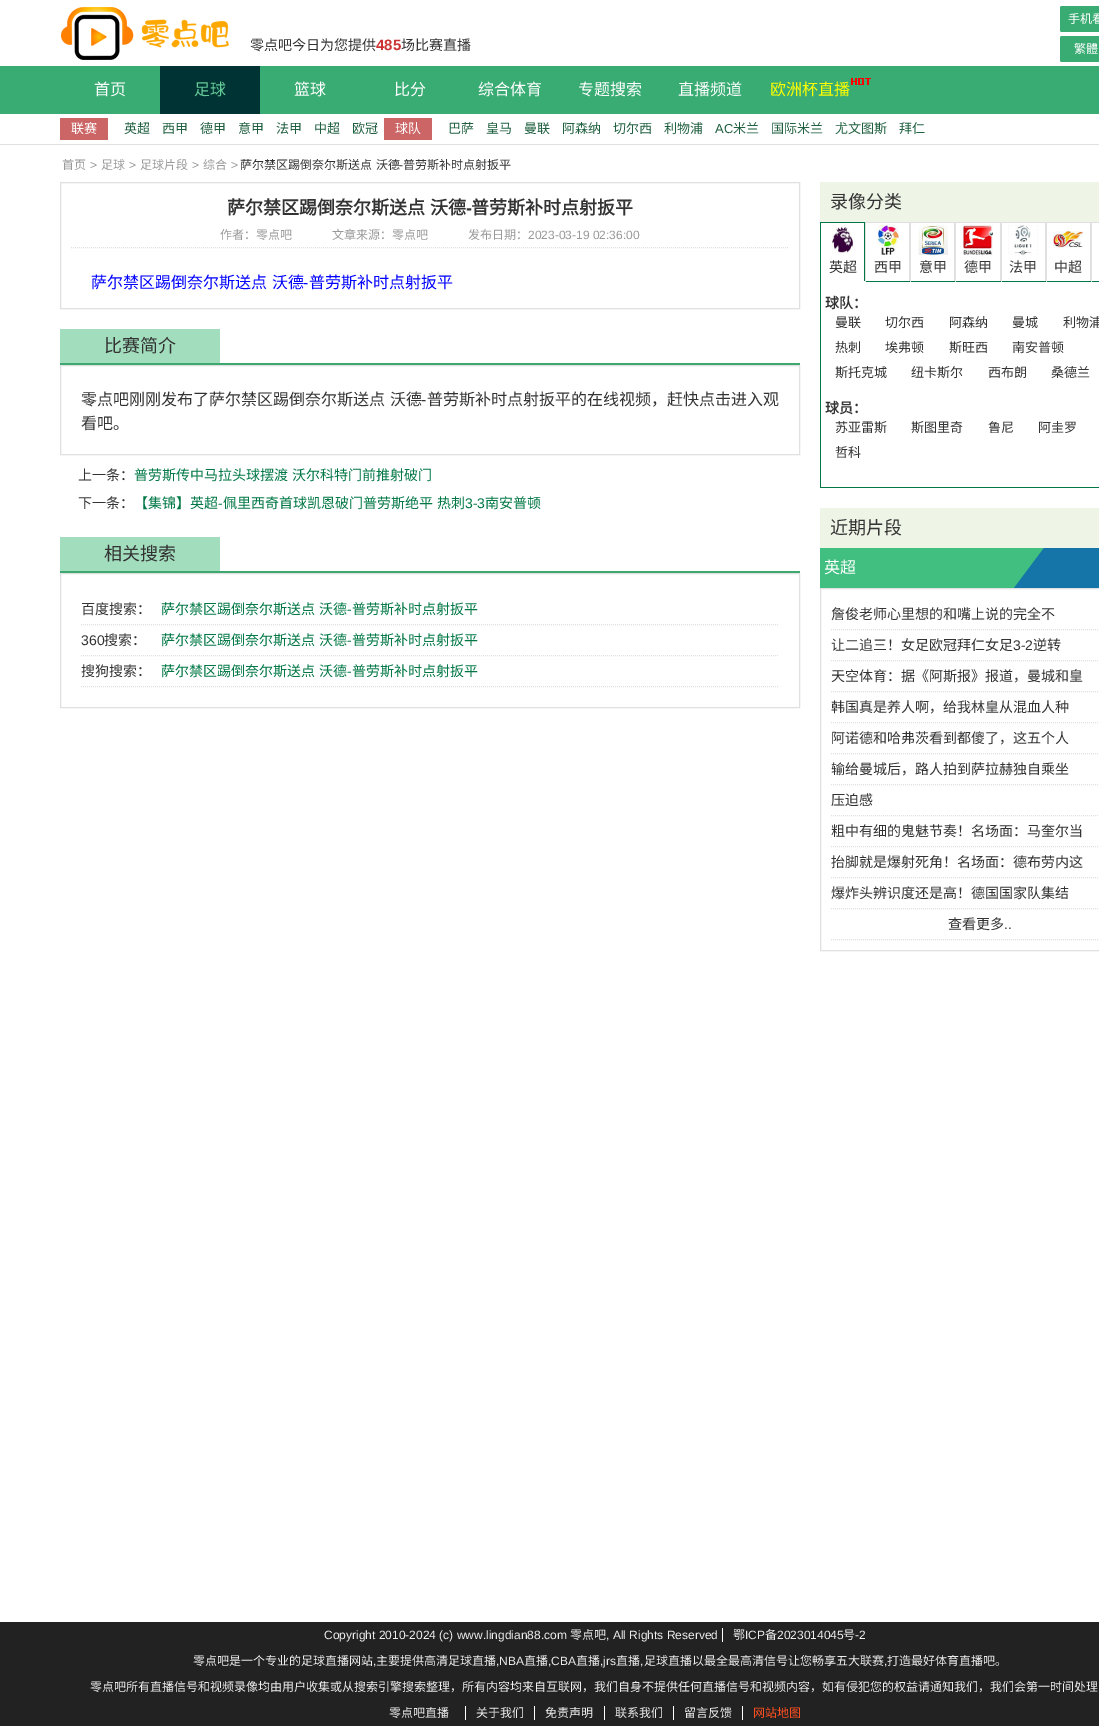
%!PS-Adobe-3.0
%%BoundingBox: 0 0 1099 1726
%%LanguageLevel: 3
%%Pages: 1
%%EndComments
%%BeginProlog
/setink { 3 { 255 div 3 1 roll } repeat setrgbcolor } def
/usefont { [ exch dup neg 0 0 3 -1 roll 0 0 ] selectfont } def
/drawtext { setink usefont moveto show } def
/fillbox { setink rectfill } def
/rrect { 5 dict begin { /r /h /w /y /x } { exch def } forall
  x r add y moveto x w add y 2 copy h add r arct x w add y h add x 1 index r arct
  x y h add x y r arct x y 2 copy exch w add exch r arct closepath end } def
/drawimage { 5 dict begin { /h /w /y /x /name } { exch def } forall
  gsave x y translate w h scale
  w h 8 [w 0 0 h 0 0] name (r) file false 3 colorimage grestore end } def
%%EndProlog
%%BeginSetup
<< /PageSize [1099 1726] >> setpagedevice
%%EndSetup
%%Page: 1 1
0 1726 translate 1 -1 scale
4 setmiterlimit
0 0 1099 1726 255 255 255 fillbox
0 144 1099 1 224 224 224 fillbox
(assets/img1.rgb) 61 7 168 53 drawimage
(零点吧今日为您提供) 250 50 /NotoSansCJKSC-Regular 14 51 51 51 drawtext
(485) 376 50 /LiberationSans-Bold 15 204 51 51 drawtext
(场比赛直播) 401 50 /NotoSansCJKSC-Regular 14 51 51 51 drawtext
57 172 115 setink
1060 6 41 26 2 rrect fill
(手机看) 1068 23 /NotoSansCJKSC-Regular 12 255 255 255 drawtext
57 172 115 setink
1060 36 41 26 2 rrect fill
(繁體) 1074 53 /NotoSansCJKSC-Regular 12 255 255 255 drawtext
0 66 1099 48 57 172 115 fillbox
(首页) 94 95 /NotoSansCJKSC-Regular 16 255 255 255 drawtext
160 66 100 48 0 51 51 fillbox
(足球) 194 95 /NotoSansCJKSC-Regular 16 102 204 153 drawtext
(篮球) 294 95 /NotoSansCJKSC-Regular 16 255 255 255 drawtext
(比分) 394 95 /NotoSansCJKSC-Regular 16 255 255 255 drawtext
(综合体育) 478 95 /NotoSansCJKSC-Regular 16 255 255 255 drawtext
(专题搜索) 578 95 /NotoSansCJKSC-Regular 16 255 255 255 drawtext
(直播频道) 678 95 /NotoSansCJKSC-Regular 16 255 255 255 drawtext
(欧洲杯直播) 770 95 /NotoSansCJKSC-Regular 16 255 255 0 drawtext
(assets/img2.rgb) 851 78 20 7 drawimage
60 118 48 22 204 102 102 fillbox
(联赛) 71 133 /NotoSansCJKSC-Regular 13 255 255 255 drawtext
(英超) 124 133 /NotoSansCJKSC-Regular 13 32 96 64 drawtext
(西甲) 162 133 /NotoSansCJKSC-Regular 13 32 96 64 drawtext
(德甲) 200 133 /NotoSansCJKSC-Regular 13 32 96 64 drawtext
(意甲) 238 133 /NotoSansCJKSC-Regular 13 32 96 64 drawtext
(法甲) 276 133 /NotoSansCJKSC-Regular 13 32 96 64 drawtext
(中超) 314 133 /NotoSansCJKSC-Regular 13 32 96 64 drawtext
(欧冠) 352 133 /NotoSansCJKSC-Regular 13 32 96 64 drawtext
384 118 48 22 204 102 102 fillbox
(球队) 395 133 /NotoSansCJKSC-Regular 13 255 255 255 drawtext
(巴萨) 448 133 /NotoSansCJKSC-Regular 13 32 96 64 drawtext
(皇马) 486 133 /NotoSansCJKSC-Regular 13 32 96 64 drawtext
(曼联) 524 133 /NotoSansCJKSC-Regular 13 32 96 64 drawtext
(阿森纳) 562 133 /NotoSansCJKSC-Regular 13 32 96 64 drawtext
(切尔西) 613 133 /NotoSansCJKSC-Regular 13 32 96 64 drawtext
(利物浦) 664 133 /NotoSansCJKSC-Regular 13 32 96 64 drawtext
(AC) 715 133 /LiberationSans-Regular 13 32 96 64 drawtext
(米兰) 733 133 /NotoSansCJKSC-Regular 13 32 96 64 drawtext
(国际米兰) 771 133 /NotoSansCJKSC-Regular 13 32 96 64 drawtext
(尤文图斯) 835 133 /NotoSansCJKSC-Regular 13 32 96 64 drawtext
(拜仁) 899 133 /NotoSansCJKSC-Regular 13 32 96 64 drawtext
(首页) 62 169 /NotoSansCJKSC-Regular 12 153 153 153 drawtext
(>) 90 169 /LiberationSans-Regular 12 153 153 153 drawtext
(足球) 101 169 /NotoSansCJKSC-Regular 12 153 153 153 drawtext
(>) 129 169 /LiberationSans-Regular 12 153 153 153 drawtext
(足球片段) 140 169 /NotoSansCJKSC-Regular 12 153 153 153 drawtext
(>) 192 169 /LiberationSans-Regular 12 153 153 153 drawtext
(综合) 203 169 /NotoSansCJKSC-Regular 12 153 153 153 drawtext
(>) 231 169 /LiberationSans-Regular 12 153 153 153 drawtext
/NotoSansCJKSC-Regular 12 usefont
51 51 51 setink
240 169 moveto 1 0 32 (萨尔禁区踢倒奈尔斯送点 沃德) widthshow
(-) 399 169 /LiberationSans-Regular 12 51 51 51 drawtext
(普劳斯补时点射扳平) 403 169 /NotoSansCJKSC-Regular 12 51 51 51 drawtext
224 224 224 setink
60.5 182.5 739 126 rectstroke
/NotoSansCJKSC-Bold 18 usefont
51 51 51 setink
227 214 moveto 1 0 32 (萨尔禁区踢倒奈尔斯送点 沃德) widthshow
(-) 466 214 /LiberationSans-Bold 18 51 51 51 drawtext
(普劳斯补时点射扳平) 471 214 /NotoSansCJKSC-Bold 18 51 51 51 drawtext
224 224 224 setink
[1 1] 0 setdash
71 247.5 moveto 789 247.5 lineto stroke
(作者：零点吧) 220 239 /NotoSansCJKSC-Regular 12 153 153 153 drawtext
(文章来源：零点吧) 332 239 /NotoSansCJKSC-Regular 12 153 153 153 drawtext
(发布日期：) 468 239 /NotoSansCJKSC-Regular 12 153 153 153 drawtext
(2023-03-19 02:36:00) 528 239 /LiberationSans-Regular 12 153 153 153 drawtext
/NotoSansCJKSC-Regular 16 usefont
0 0 255 setink
91 288 moveto 1 0 32 (萨尔禁区踢倒奈尔斯送点 沃德) widthshow
(-) 303 288 /LiberationSans-Regular 16 0 0 255 drawtext
(普劳斯补时点射扳平) 309 288 /NotoSansCJKSC-Regular 16 0 0 255 drawtext
60 363 740 2 62 168 113 fillbox
60 329 160 34 162 221 190 fillbox
(比赛简介) 104 352 /NotoSansCJKSC-Regular 18 51 51 51 drawtext
224 224 224 setink
[] 0 setdash
60.5 365.5 739 89 rectstroke
/NotoSansCJKSC-Regular 16 usefont
51 51 51 setink
81 405 moveto 1 0 32 (零点吧刚刚发布了萨尔禁区踢倒奈尔斯送点 沃德) widthshow
(-) 421 405 /LiberationSans-Regular 16 51 51 51 drawtext
(普劳斯补时点射扳平的在线视频，赶快点击进入观) 427 405 /NotoSansCJKSC-Regular 16 51 51 51 drawtext
(看吧。) 81 429 /NotoSansCJKSC-Regular 16 51 51 51 drawtext
(上一条：) 78 480 /NotoSansCJKSC-Regular 14 51 51 51 drawtext
0 119 68 setink
134 480 moveto 1 0 32 (普劳斯传中马拉头球摆渡 沃尔科特门前推射破门) widthshow
(下一条：) 78 508 /NotoSansCJKSC-Regular 14 51 51 51 drawtext
(【集锦】英超) 134 508 /NotoSansCJKSC-Regular 14 0 119 68 drawtext
(-) 218 508 /LiberationSans-Regular 14 0 119 68 drawtext
/NotoSansCJKSC-Regular 14 usefont
223 508 moveto 1 0 32 (佩里西奇首球凯恩破门普劳斯绝平 热刺) widthshow
(3-3) 465 508 /LiberationSans-Regular 14 0 119 68 drawtext
(南安普顿) 485 508 /NotoSansCJKSC-Regular 14 0 119 68 drawtext
60 571 740 2 62 168 113 fillbox
60 537 160 34 162 221 190 fillbox
(相关搜索) 104 560 /NotoSansCJKSC-Regular 18 51 51 51 drawtext
224 224 224 setink
60.5 573.5 739 134 rectstroke
[1 1] 0 setdash
81 624.5 moveto 779 624.5 lineto stroke
(百度搜索：) 81 614 /NotoSansCJKSC-Regular 14 51 51 51 drawtext
0 119 68 setink
161 614 moveto 1 0 32 (萨尔禁区踢倒奈尔斯送点 沃德) widthshow
(-) 347 614 /LiberationSans-Regular 14 0 119 68 drawtext
(普劳斯补时点射扳平) 352 614 /NotoSansCJKSC-Regular 14 0 119 68 drawtext
224 224 224 setink
81 655.5 moveto 779 655.5 lineto stroke
(360) 81 645 /LiberationSans-Regular 14 51 51 51 drawtext
(搜索：) 104 645 /NotoSansCJKSC-Regular 14 51 51 51 drawtext
0 119 68 setink
161 645 moveto 1 0 32 (萨尔禁区踢倒奈尔斯送点 沃德) widthshow
(-) 347 645 /LiberationSans-Regular 14 0 119 68 drawtext
(普劳斯补时点射扳平) 352 645 /NotoSansCJKSC-Regular 14 0 119 68 drawtext
224 224 224 setink
81 686.5 moveto 779 686.5 lineto stroke
(搜狗搜索：) 81 676 /NotoSansCJKSC-Regular 14 51 51 51 drawtext
0 119 68 setink
161 676 moveto 1 0 32 (萨尔禁区踢倒奈尔斯送点 沃德) widthshow
(-) 347 676 /LiberationSans-Regular 14 0 119 68 drawtext
(普劳斯补时点射扳平) 352 676 /NotoSansCJKSC-Regular 14 0 119 68 drawtext
820 182 279 40 238 244 230 fillbox
(录像分类) 830 208 /NotoSansCJKSC-Regular 18 51 51 51 drawtext
820 222 45 1 0 119 68 fillbox
864 222 1 60 0 119 68 fillbox
864 281 1 1 255 255 255 fillbox
820 222 1 60 0 119 68 fillbox
(assets/img3.rgb) 831 227 24 27 drawimage
(英超) 829 272 /NotoSansCJKSC-Regular 14 51 51 51 drawtext
865 222 234 1 224 224 224 fillbox
909 222 1 60 224 224 224 fillbox
865 281 45 1 0 119 68 fillbox
865 222 1 60 224 224 224 fillbox
(assets/img4.rgb) 877 225 26 30 drawimage
(西甲) 874 272 /NotoSansCJKSC-Regular 14 51 51 51 drawtext
954 222 1 60 224 224 224 fillbox
910 281 45 1 0 119 68 fillbox
910 222 1 60 224 224 224 fillbox
(assets/img5.rgb) 918 225 30 30 drawimage
(意甲) 919 272 /NotoSansCJKSC-Regular 14 51 51 51 drawtext
1000 222 1 60 224 224 224 fillbox
955 281 46 1 0 119 68 fillbox
955 222 1 60 224 224 224 fillbox
(assets/img6.rgb) 963 225 30 30 drawimage
(德甲) 964 272 /NotoSansCJKSC-Regular 14 51 51 51 drawtext
1045 222 1 60 224 224 224 fillbox
1001 281 45 1 0 119 68 fillbox
1001 222 1 60 224 224 224 fillbox
(assets/img7.rgb) 1008 225 30 30 drawimage
(法甲) 1009 272 /NotoSansCJKSC-Regular 14 51 51 51 drawtext
1090 222 1 60 224 224 224 fillbox
1046 281 53 1 0 119 68 fillbox
1046 222 1 60 224 224 224 fillbox
(assets/img8.rgb) 1053 231 30 18 drawimage
(中超) 1054 272 /NotoSansCJKSC-Regular 14 51 51 51 drawtext
1091 222 1 60 224 224 224 fillbox
820 487 279 1 0 119 68 fillbox
820 282 1 206 0 119 68 fillbox
(球队：) 825 308 /NotoSansCJKSC-Bold 14 51 51 51 drawtext
(曼联) 835 327 /NotoSansCJKSC-Regular 13 51 51 51 drawtext
(切尔西) 885 327 /NotoSansCJKSC-Regular 13 51 51 51 drawtext
(阿森纳) 949 327 /NotoSansCJKSC-Regular 13 51 51 51 drawtext
(曼城) 1012 327 /NotoSansCJKSC-Regular 13 51 51 51 drawtext
(利物浦) 1063 327 /NotoSansCJKSC-Regular 13 51 51 51 drawtext
(热刺) 835 352 /NotoSansCJKSC-Regular 13 51 51 51 drawtext
(埃弗顿) 885 352 /NotoSansCJKSC-Regular 13 51 51 51 drawtext
(斯旺西) 949 352 /NotoSansCJKSC-Regular 13 51 51 51 drawtext
(南安普顿) 1012 352 /NotoSansCJKSC-Regular 13 51 51 51 drawtext
(斯托克城) 835 377 /NotoSansCJKSC-Regular 13 51 51 51 drawtext
(纽卡斯尔) 911 377 /NotoSansCJKSC-Regular 13 51 51 51 drawtext
(西布朗) 988 377 /NotoSansCJKSC-Regular 13 51 51 51 drawtext
(桑德兰) 1051 377 /NotoSansCJKSC-Regular 13 51 51 51 drawtext
(球员：) 825 413 /NotoSansCJKSC-Bold 14 51 51 51 drawtext
(苏亚雷斯) 835 432 /NotoSansCJKSC-Regular 13 51 51 51 drawtext
(斯图里奇) 911 432 /NotoSansCJKSC-Regular 13 51 51 51 drawtext
(鲁尼) 988 432 /NotoSansCJKSC-Regular 13 51 51 51 drawtext
(阿圭罗) 1038 432 /NotoSansCJKSC-Regular 13 51 51 51 drawtext
(哲科) 835 457 /NotoSansCJKSC-Regular 13 51 51 51 drawtext
820 508 279 40 238 244 230 fillbox
(近期片段) 830 534 /NotoSansCJKSC-Regular 18 51 51 51 drawtext
820 548 224 40 64 191 128 fillbox
21 116 168 setink
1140 588 moveto 1014 588 lineto 1044 548 lineto 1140 548 lineto closepath fill
(英超) 824 573 /NotoSansCJKSC-Regular 16 255 255 255 drawtext
224 224 224 setink
[] 0 setdash
820.5 588.5 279 362 rectstroke
[1 1] 0 setdash
831 629.5 moveto 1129 629.5 lineto stroke
(詹俊老师心里想的和嘴上说的完全不) 831 619 /NotoSansCJKSC-Regular 14 51 51 51 drawtext
224 224 224 setink
831 660.5 moveto 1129 660.5 lineto stroke
(让二追三！女足欧冠拜仁女足) 831 650 /NotoSansCJKSC-Regular 14 51 51 51 drawtext
(3-2) 1013 650 /LiberationSans-Regular 14 51 51 51 drawtext
(逆转) 1033 650 /NotoSansCJKSC-Regular 14 51 51 51 drawtext
224 224 224 setink
831 691.5 moveto 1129 691.5 lineto stroke
(天空体育：据《阿斯报》报道，曼城和皇) 831 681 /NotoSansCJKSC-Regular 14 51 51 51 drawtext
224 224 224 setink
831 722.5 moveto 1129 722.5 lineto stroke
(韩国真是养人啊，给我林皇从混血人种) 831 712 /NotoSansCJKSC-Regular 14 51 51 51 drawtext
224 224 224 setink
831 753.5 moveto 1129 753.5 lineto stroke
(阿诺德和哈弗茨看到都傻了，这五个人) 831 743 /NotoSansCJKSC-Regular 14 51 51 51 drawtext
224 224 224 setink
831 784.5 moveto 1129 784.5 lineto stroke
(输给曼城后，路人拍到萨拉赫独自乘坐) 831 774 /NotoSansCJKSC-Regular 14 51 51 51 drawtext
224 224 224 setink
831 815.5 moveto 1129 815.5 lineto stroke
(压迫感) 831 805 /NotoSansCJKSC-Regular 14 51 51 51 drawtext
224 224 224 setink
831 846.5 moveto 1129 846.5 lineto stroke
(粗中有细的鬼魅节奏！名场面：马奎尔当) 831 836 /NotoSansCJKSC-Regular 14 51 51 51 drawtext
224 224 224 setink
831 877.5 moveto 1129 877.5 lineto stroke
(抬脚就是爆射死角！名场面：德布劳内这) 831 867 /NotoSansCJKSC-Regular 14 51 51 51 drawtext
224 224 224 setink
831 908.5 moveto 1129 908.5 lineto stroke
(爆炸头辨识度还是高！德国国家队集结) 831 898 /NotoSansCJKSC-Regular 14 51 51 51 drawtext
224 224 224 setink
831 939.5 moveto 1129 939.5 lineto stroke
(查看更多) 948 929 /NotoSansCJKSC-Regular 14 51 51 51 drawtext
(..) 1004 929 /LiberationSans-Regular 14 51 51 51 drawtext
0 1622 1099 104 34 34 34 fillbox
(Copyright 2010-2024 \(c\) www.lingdian88.com) 324 1639 /LiberationSans-Regular 12 238 238 238 drawtext
(零点吧) 570 1639 /NotoSansCJKSC-Regular 12 238 238 238 drawtext
(, All Rights Reserved) 606 1639 /LiberationSans-Regular 12 238 238 238 drawtext
(鄂) 733 1639 /NotoSansCJKSC-Regular 12 238 238 238 drawtext
722 1628 1 14 255 255 255 fillbox
(ICP) 745 1639 /LiberationSans-Regular 12 238 238 238 drawtext
(备) 765 1639 /NotoSansCJKSC-Regular 12 238 238 238 drawtext
(2023014045) 777 1639 /LiberationSans-Regular 12 238 238 238 drawtext
(号) 843 1639 /NotoSansCJKSC-Regular 12 238 238 238 drawtext
(-2) 855 1639 /LiberationSans-Regular 12 238 238 238 drawtext
(零点吧是一个专业的足球直播网站) 193 1665 /NotoSansCJKSC-Regular 12 238 238 238 drawtext
(,) 373 1665 /LiberationSans-Regular 12 238 238 238 drawtext
(主要提供高清足球直播) 376 1665 /NotoSansCJKSC-Regular 12 238 238 238 drawtext
(,NBA) 496 1665 /LiberationSans-Regular 12 238 238 238 drawtext
(直播) 524 1665 /NotoSansCJKSC-Regular 12 238 238 238 drawtext
(,CBA) 548 1665 /LiberationSans-Regular 12 238 238 238 drawtext
(直播) 576 1665 /NotoSansCJKSC-Regular 12 238 238 238 drawtext
(,jrs) 600 1665 /LiberationSans-Regular 12 238 238 238 drawtext
(直播) 616 1665 /NotoSansCJKSC-Regular 12 238 238 238 drawtext
(,) 640 1665 /LiberationSans-Regular 12 238 238 238 drawtext
(足球直播以最全最高清信号让您畅享五大联赛) 644 1665 /NotoSansCJKSC-Regular 12 238 238 238 drawtext
(,) 884 1665 /LiberationSans-Regular 12 238 238 238 drawtext
(打造最好体育直播吧。) 887 1665 /NotoSansCJKSC-Regular 12 238 238 238 drawtext
(零点吧所有直播信号和视频录像均由用户收集或从搜索引擎搜索整理，所有内容均来自互联网，我们自身不提供任何直播信号和视频内容，如有侵犯您的权益请通知我们，我们会第一时间处理) 90 1691 /NotoSansCJKSC-Regular 12 238 238 238 drawtext
(零点吧直播) 389 1717 /NotoSansCJKSC-Regular 12 238 238 238 drawtext
(关于我们) 476 1717 /NotoSansCJKSC-Regular 12 238 238 238 drawtext
465 1706 1 14 255 255 255 fillbox
(免责声明) 545 1717 /NotoSansCJKSC-Regular 12 238 238 238 drawtext
534 1706 1 14 255 255 255 fillbox
(联系我们) 615 1717 /NotoSansCJKSC-Regular 12 238 238 238 drawtext
604 1706 1 14 255 255 255 fillbox
(留言反馈) 684 1717 /NotoSansCJKSC-Regular 12 238 238 238 drawtext
673 1706 1 14 255 255 255 fillbox
(网站地图) 753 1717 /NotoSansCJKSC-Regular 12 255 79 32 drawtext
742 1706 1 14 255 255 255 fillbox
showpage
%%EOF
